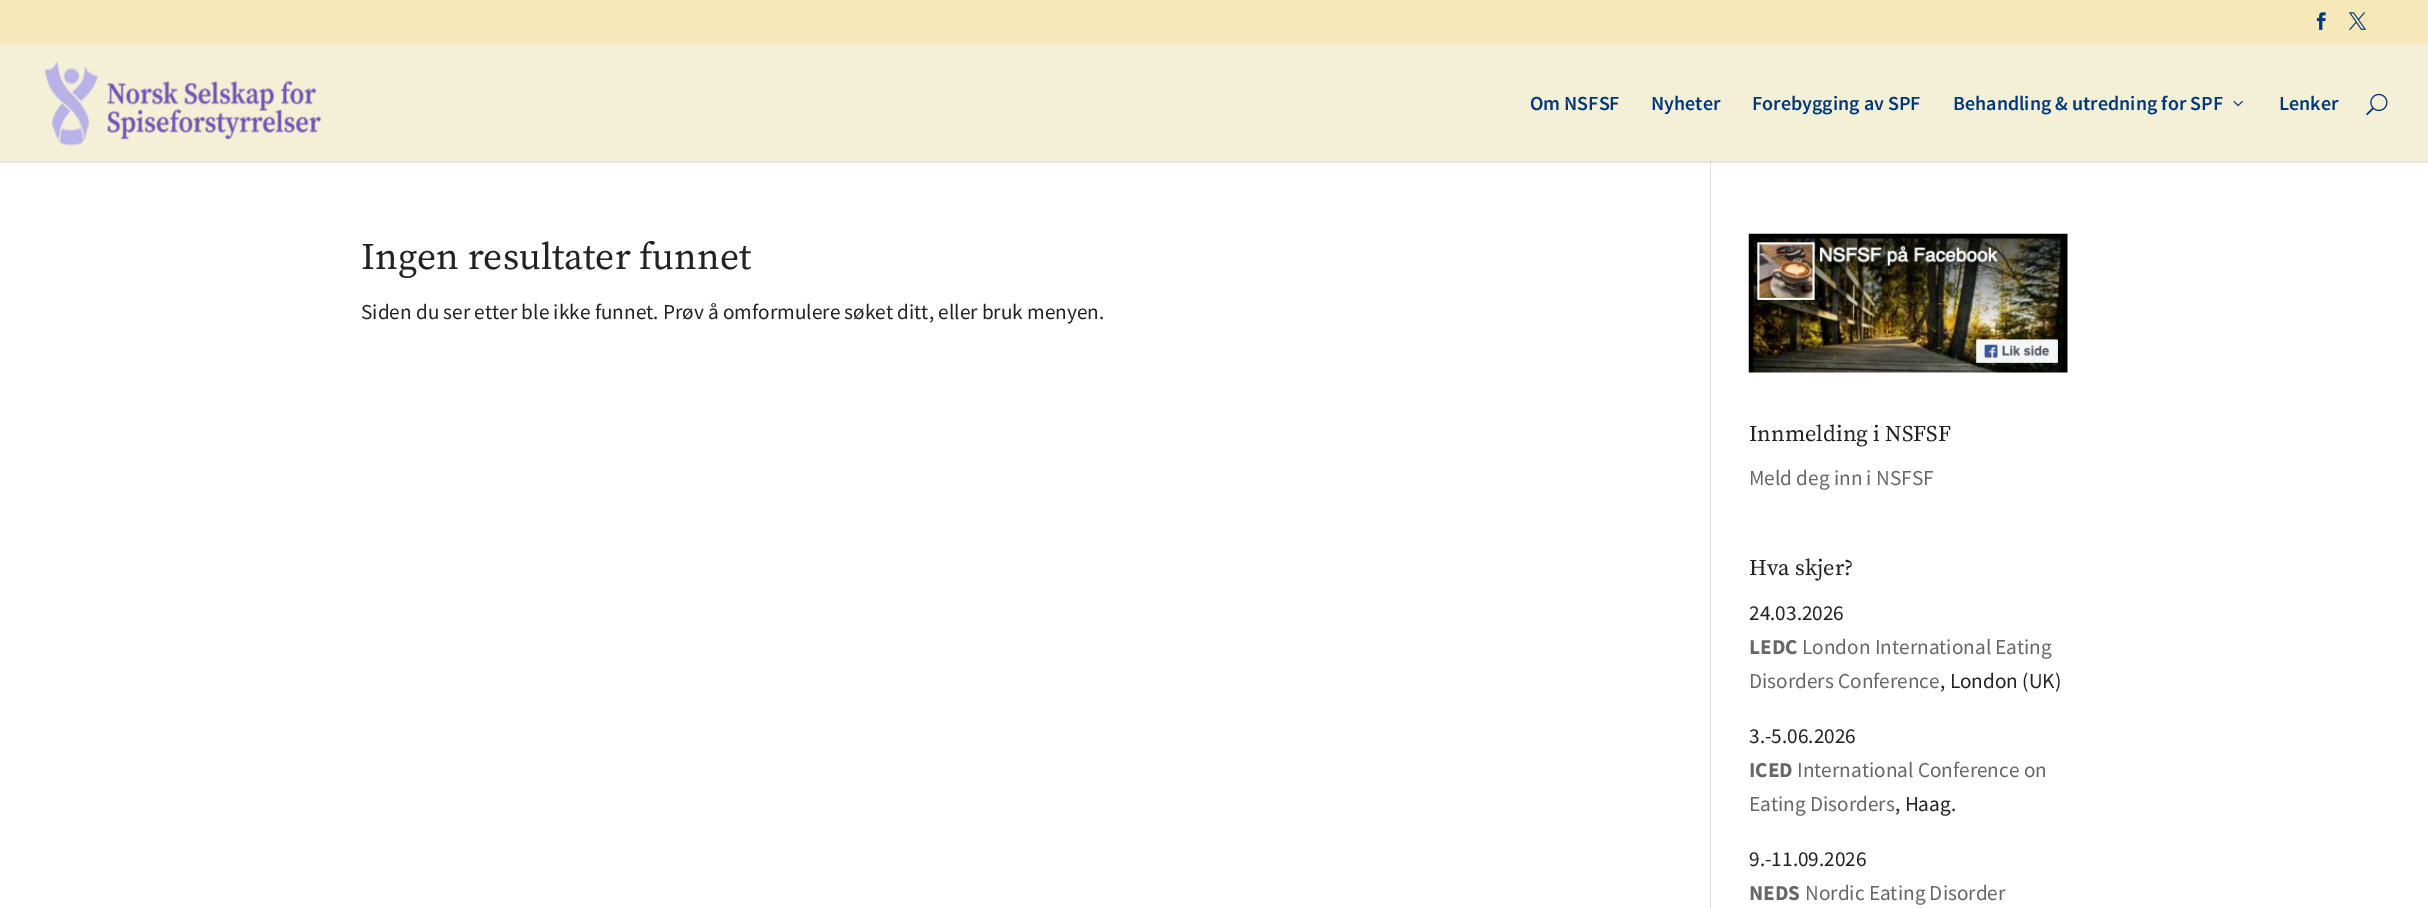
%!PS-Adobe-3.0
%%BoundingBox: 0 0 2428 908
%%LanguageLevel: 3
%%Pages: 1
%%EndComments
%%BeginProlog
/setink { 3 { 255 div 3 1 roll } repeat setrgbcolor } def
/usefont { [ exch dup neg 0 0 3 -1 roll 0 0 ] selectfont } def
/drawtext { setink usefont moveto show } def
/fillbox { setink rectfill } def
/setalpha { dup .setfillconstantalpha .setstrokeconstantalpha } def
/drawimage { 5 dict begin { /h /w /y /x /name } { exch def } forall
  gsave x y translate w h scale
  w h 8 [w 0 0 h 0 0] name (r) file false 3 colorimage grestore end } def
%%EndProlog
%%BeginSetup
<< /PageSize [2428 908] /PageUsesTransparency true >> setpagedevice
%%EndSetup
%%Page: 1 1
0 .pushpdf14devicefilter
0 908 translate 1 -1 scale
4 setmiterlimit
0 0 2428 908 255 255 255 fillbox
0 0 2428 44 247 232 185 fillbox
(assets/img1.rgb) 2316 12 10 18 drawimage
(assets/img2.rgb) 2348 12 19 18 drawimage
1710 161 1 747 226 226 226 fillbox
0.1 setalpha
0 0 0 setink
0 161 moveto 0 163 lineto 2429 163 lineto 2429 45 lineto 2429 161 lineto closepath fill
1 setalpha
0 44 2428 117 244 239 215 fillbox
(assets/img3.rgb) 44 61 278 85 drawimage
(Om NSFSF) 1530 110 /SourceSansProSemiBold-SemiBold 20 0 55 118 drawtext
(Nyheter) 1651 110 /SourceSansProSemiBold-SemiBold 20 0 55 118 drawtext
(Forebygging av SPF) 1752 110 /SourceSansProSemiBold-SemiBold 20 0 55 118 drawtext
(Behandling & utredning for SPF) 1953 110 /SourceSansProSemiBold-SemiBold 20 0 55 118 drawtext
(assets/img4.rgb) 2233 101 10 6 drawimage
(Lenker) 2279 110 /SourceSansProSemiBold-SemiBold 20 0 55 118 drawtext
(assets/img5.rgb) 2366 93 22 23 drawimage
(Ingen resultater funnet) 361 269 /SourceSerifPro-Regular 37.5 34 34 34 drawtext
(Siden du ser etter ble ikke funnet. Prøv å omformulere søket ditt, eller bruk menyen.) 361 319 /SourceSansPro-Regular 21.25 34 34 34 drawtext
(assets/img6.rgb) 1748 233 320 140 drawimage
(Innmelding i NSFSF) 1749 441 /SourceSerifPro-Regular 22.5 34 34 34 drawtext
(Meld deg inn i NSFSF) 1749 485 /SourceSansPro-Regular 21.25 102 102 102 drawtext
(Hva skjer?) 1749 575 /SourceSerifPro-Regular 22.5 34 34 34 drawtext
(24.03.2026) 1749 620 /SourceSansPro-Regular 21.25 34 34 34 drawtext
(LEDC) 1749 654 /SourceSansPro-Bold 21.25 102 102 102 drawtext
(London International Eating) 1802 654 /SourceSansPro-Regular 21.25 102 102 102 drawtext
(Disorders Conference) 1749 688 /SourceSansPro-Regular 21.25 102 102 102 drawtext
(, London \(UK\)) 1940 688 /SourceSansPro-Regular 21.25 34 34 34 drawtext
(3.-5.06.2026) 1749 743 /SourceSansPro-Regular 21.25 34 34 34 drawtext
(ICED) 1749 777 /SourceSansPro-Bold 21.25 102 102 102 drawtext
(International Conference on) 1797 777 /SourceSansPro-Regular 21.25 102 102 102 drawtext
(Eating Disorders) 1749 811 /SourceSansPro-Regular 21.25 102 102 102 drawtext
(, Haag.) 1895 811 /SourceSansPro-Regular 21.25 34 34 34 drawtext
(9.-11.09.2026) 1749 866 /SourceSansPro-Regular 21.25 34 34 34 drawtext
(NEDS) 1749 900 /SourceSansPro-Bold 21.25 102 102 102 drawtext
(Nordic Eating Disorder) 1805 900 /SourceSansPro-Regular 21.25 102 102 102 drawtext
.poppdf14devicefilter showpage
%%EOF
